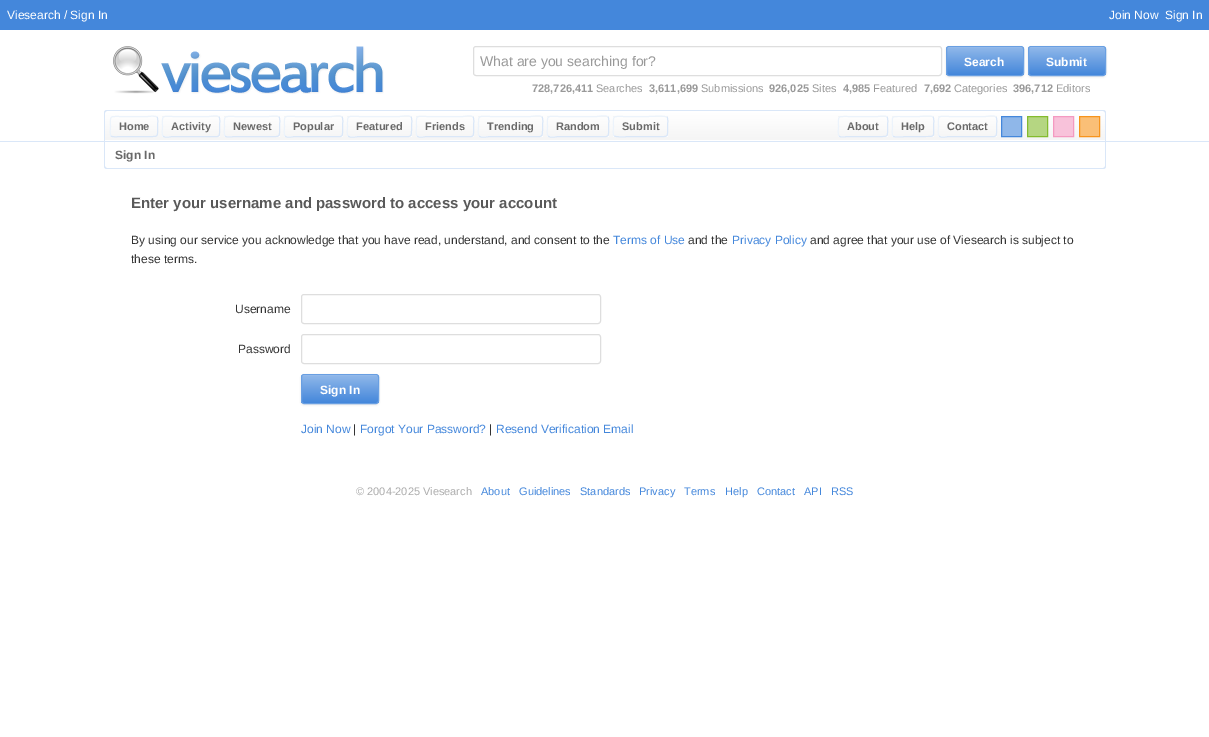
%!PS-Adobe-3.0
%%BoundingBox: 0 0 1209 737
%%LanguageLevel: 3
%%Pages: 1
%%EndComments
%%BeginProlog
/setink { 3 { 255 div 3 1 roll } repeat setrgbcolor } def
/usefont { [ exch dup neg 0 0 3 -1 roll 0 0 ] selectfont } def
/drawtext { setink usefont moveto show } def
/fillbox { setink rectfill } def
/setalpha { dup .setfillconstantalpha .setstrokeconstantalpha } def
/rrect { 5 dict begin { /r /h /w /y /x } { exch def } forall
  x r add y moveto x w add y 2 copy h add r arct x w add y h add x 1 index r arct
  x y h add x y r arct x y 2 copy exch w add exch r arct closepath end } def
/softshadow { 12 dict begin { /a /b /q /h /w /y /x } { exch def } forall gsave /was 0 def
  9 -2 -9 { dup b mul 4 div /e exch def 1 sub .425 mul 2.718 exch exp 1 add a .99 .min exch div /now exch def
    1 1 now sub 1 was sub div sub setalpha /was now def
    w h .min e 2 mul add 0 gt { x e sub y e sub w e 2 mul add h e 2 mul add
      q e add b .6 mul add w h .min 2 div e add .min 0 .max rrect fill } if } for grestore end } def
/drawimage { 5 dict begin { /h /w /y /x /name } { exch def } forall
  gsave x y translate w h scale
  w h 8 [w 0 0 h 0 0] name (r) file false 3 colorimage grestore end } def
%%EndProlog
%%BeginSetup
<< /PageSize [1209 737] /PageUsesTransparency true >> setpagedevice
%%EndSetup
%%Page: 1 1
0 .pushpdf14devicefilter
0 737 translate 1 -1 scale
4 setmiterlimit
0 0 1209 737 255 255 255 fillbox
0 0 1209 30 68 135 219 fillbox
(Viesearch / Sign In) 7 19 /LiberationSans-Regular 12 255 255 255 drawtext
(Join Now) 1109 19 /LiberationSans-Regular 12 255 255 255 drawtext
(Sign In) 1165 19 /LiberationSans-Regular 12 255 255 255 drawtext
(assets/img1.rgb) 113 46 271 48 drawimage
222 222 222 setink
473.5 46.5 468 29 2.5 rrect stroke
(What are you searching for?) 480 66 /LiberationSans-Regular 14 153 153 153 drawtext
0 0 0 setink
946 47 78 30 3 1 0.1 softshadow
gsave
946 46 78 30 3 rrect clip newpath
gsave 946 47 moveto 1024 47 lineto 1024 75 lineto 946 75 lineto closepath clip newpath
<< /ShadingType 2 /ColorSpace /DeviceRGB /Coords [1023 47 1023 75] /Extend [true true] /Function << /FunctionType 3 /Domain [0 1] /Functions [<< /FunctionType 2 /Domain [0 1] /C0 [0.925 0.953 0.984] /C1 [0.925 0.953 0.984] /N 1 >> << /FunctionType 2 /Domain [0 1] /C0 [0.925 0.953 0.984] /C1 [0.561 0.718 0.914] /N 1 >> << /FunctionType 2 /Domain [0 1] /C0 [0.561 0.718 0.914] /C1 [0.267 0.529 0.859] /N 1 >>] /Bounds [0.01 0.02] /Encode [0 1 0 1 0 1] >> >> shfill grestore
grestore
105 159 226 setink
946.5 46.5 77 29 2.5 rrect stroke
(Search) 964 66 /LiberationSans-Bold 12 255 255 255 drawtext
0 0 0 setink
1028 47 78 30 3 1 0.1 softshadow
gsave
1028 46 78 30 3 rrect clip newpath
gsave 1028 47 moveto 1106 47 lineto 1106 75 lineto 1028 75 lineto closepath clip newpath
<< /ShadingType 2 /ColorSpace /DeviceRGB /Coords [1105 47 1105 75] /Extend [true true] /Function << /FunctionType 3 /Domain [0 1] /Functions [<< /FunctionType 2 /Domain [0 1] /C0 [0.925 0.953 0.984] /C1 [0.925 0.953 0.984] /N 1 >> << /FunctionType 2 /Domain [0 1] /C0 [0.925 0.953 0.984] /C1 [0.561 0.718 0.914] /N 1 >> << /FunctionType 2 /Domain [0 1] /C0 [0.561 0.718 0.914] /C1 [0.267 0.529 0.859] /N 1 >>] /Bounds [0.01 0.02] /Encode [0 1 0 1 0 1] >> >> shfill grestore
grestore
105 159 226 setink
1028.5 46.5 77 29 2.5 rrect stroke
(Submit) 1046 66 /LiberationSans-Bold 12 255 255 255 drawtext
(728,726,411) 532 92 /LiberationSans-Bold 11 153 153 153 drawtext
(Searches) 596 92 /LiberationSans-Regular 11 153 153 153 drawtext
(3,611,699) 649 92 /LiberationSans-Bold 11 153 153 153 drawtext
(Submissions) 701 92 /LiberationSans-Regular 11 153 153 153 drawtext
(926,025) 769 92 /LiberationSans-Bold 11 153 153 153 drawtext
(Sites) 812 92 /LiberationSans-Regular 11 153 153 153 drawtext
(4,985) 843 92 /LiberationSans-Bold 11 153 153 153 drawtext
(Featured) 873 92 /LiberationSans-Regular 11 153 153 153 drawtext
(7,692) 924 92 /LiberationSans-Bold 11 153 153 153 drawtext
(Categories) 954 92 /LiberationSans-Regular 11 153 153 153 drawtext
(396,712) 1013 92 /LiberationSans-Bold 11 153 153 153 drawtext
(Editors) 1056 92 /LiberationSans-Regular 11 153 153 153 drawtext
0 141 1209 1 218 231 248 fillbox
gsave
107 110 moveto 1103 110 lineto 1104.5 110 1106 111.5 1106 113 curveto 1106 141 lineto 104 141 lineto 104 113 lineto 104 111.5 105.5 110 107 110 curveto closepath clip newpath
gsave 104 111 moveto 1106 111 lineto 1106 141 lineto 104 141 lineto closepath clip newpath
<< /ShadingType 2 /ColorSpace /DeviceRGB /Coords [1105 111 1105 141] /Extend [true true] /Function << /FunctionType 3 /Domain [0 1] /Functions [<< /FunctionType 2 /Domain [0 1] /C0 [1 1 1] /C1 [1 1 1] /N 1 >> << /FunctionType 2 /Domain [0 1] /C0 [1 1 1] /C1 [1 1 1] /N 1 >> << /FunctionType 2 /Domain [0 1] /C0 [1 1 1] /C1 [0.961 0.961 0.961] /N 1 >> << /FunctionType 2 /Domain [0 1] /C0 [0.961 0.961 0.961] /C1 [1 1 1] /N 1 >>] /Bounds [0.01 0.02 0.98] /Encode [0 1 0 1 0 1 0 1] >> >> shfill grestore
grestore
107 110 moveto 1103 110 lineto 1105 110 1106 111 1106 113 curveto 1106 141 lineto 104 141 lineto 104 113 lineto 104 111 105 110 107 110 curveto closepath 107 111 moveto 1103 111 lineto 1104 111 1105 112 1105 113 curveto 1105 141 lineto 105 141 lineto 105 113 lineto 105 112 106 111 107 111 curveto closepath eofill
157 117 moveto 158.5 119 157.5 124.5 157.5 126.5 curveto 157.5 137.5 159 136.5 148 136.5 curveto 120 136.5 lineto 120 136.5 113 137.5 111 136 curveto stroke
236 243 251 setink
111 136 moveto 109.5 134 110.5 128.5 110.5 126.5 curveto 110.5 115.5 109 116.5 120 116.5 curveto 148 116.5 lineto 148 116.5 155 115.5 157 117 curveto stroke
(Home) 119 130 /LiberationSans-Bold 11 105 105 105 drawtext
gsave
162 116 58 21 3 rrect clip newpath
gsave 162 116 moveto 220 116 lineto 220 117 lineto 162 117 lineto closepath clip newpath
<< /ShadingType 2 /ColorSpace /DeviceRGB /Coords [219 98 219 117] /Extend [true true] /Function << /FunctionType 3 /Domain [0 1] /Functions [<< /FunctionType 2 /Domain [0 1] /C0 [1 1 1] /C1 [1 1 1] /N 1 >> << /FunctionType 2 /Domain [0 1] /C0 [1 1 1] /C1 [1 1 1] /N 1 >> << /FunctionType 2 /Domain [0 1] /C0 [1 1 1] /C1 [0.961 0.961 0.961] /N 1 >>] /Bounds [0.01 0.02] /Encode [0 1 0 1 0 1] >> >> shfill grestore
gsave 162 136 moveto 220 136 lineto 220 137 lineto 162 137 lineto closepath clip newpath
<< /ShadingType 2 /ColorSpace /DeviceRGB /Coords [219 136 219 155] /Extend [true true] /Function << /FunctionType 3 /Domain [0 1] /Functions [<< /FunctionType 2 /Domain [0 1] /C0 [1 1 1] /C1 [1 1 1] /N 1 >> << /FunctionType 2 /Domain [0 1] /C0 [1 1 1] /C1 [1 1 1] /N 1 >> << /FunctionType 2 /Domain [0 1] /C0 [1 1 1] /C1 [0.961 0.961 0.961] /N 1 >>] /Bounds [0.01 0.02] /Encode [0 1 0 1 0 1] >> >> shfill grestore
grestore
218 231 248 setink
219 117 moveto 220.5 119 219.5 124.5 219.5 126.5 curveto 219.5 138.5 221 136.5 208.5 136.5 curveto 173.5 136.5 lineto 170 136.5 165.5 138.5 163 136 curveto stroke
236 243 251 setink
163 136 moveto 161.5 134 162.5 128.5 162.5 126.5 curveto 162.5 114.5 161 116.5 173.5 116.5 curveto 208.5 116.5 lineto 212 116.5 216.5 114.5 219 117 curveto stroke
(Activity) 171 130 /LiberationSans-Bold 11 105 105 105 drawtext
gsave
224 116 56 21 3 rrect clip newpath
gsave 224 116 moveto 280 116 lineto 280 117 lineto 224 117 lineto closepath clip newpath
<< /ShadingType 2 /ColorSpace /DeviceRGB /Coords [279 98 279 117] /Extend [true true] /Function << /FunctionType 3 /Domain [0 1] /Functions [<< /FunctionType 2 /Domain [0 1] /C0 [1 1 1] /C1 [1 1 1] /N 1 >> << /FunctionType 2 /Domain [0 1] /C0 [1 1 1] /C1 [1 1 1] /N 1 >> << /FunctionType 2 /Domain [0 1] /C0 [1 1 1] /C1 [0.961 0.961 0.961] /N 1 >>] /Bounds [0.01 0.02] /Encode [0 1 0 1 0 1] >> >> shfill grestore
gsave 224 136 moveto 280 136 lineto 280 137 lineto 224 137 lineto closepath clip newpath
<< /ShadingType 2 /ColorSpace /DeviceRGB /Coords [279 136 279 155] /Extend [true true] /Function << /FunctionType 3 /Domain [0 1] /Functions [<< /FunctionType 2 /Domain [0 1] /C0 [1 1 1] /C1 [1 1 1] /N 1 >> << /FunctionType 2 /Domain [0 1] /C0 [1 1 1] /C1 [1 1 1] /N 1 >> << /FunctionType 2 /Domain [0 1] /C0 [1 1 1] /C1 [0.961 0.961 0.961] /N 1 >>] /Bounds [0.01 0.02] /Encode [0 1 0 1 0 1] >> >> shfill grestore
grestore
218 231 248 setink
279 117 moveto 280.5 119 279.5 124.5 279.5 126.5 curveto 279.5 138 281 136.5 268.5 136.5 curveto 235.5 136.5 lineto 232 136.5 227.5 138 225 136 curveto stroke
236 243 251 setink
225 136 moveto 223.5 134 224.5 128.5 224.5 126.5 curveto 224.5 115 223 116.5 235.5 116.5 curveto 268.5 116.5 lineto 272 116.5 276.5 115 279 117 curveto stroke
(Newest) 233 130 /LiberationSans-Bold 11 105 105 105 drawtext
gsave
284 116 59 21 3 rrect clip newpath
gsave 284 116 moveto 343 116 lineto 343 117 lineto 284 117 lineto closepath clip newpath
<< /ShadingType 2 /ColorSpace /DeviceRGB /Coords [342 98 342 117] /Extend [true true] /Function << /FunctionType 3 /Domain [0 1] /Functions [<< /FunctionType 2 /Domain [0 1] /C0 [1 1 1] /C1 [1 1 1] /N 1 >> << /FunctionType 2 /Domain [0 1] /C0 [1 1 1] /C1 [1 1 1] /N 1 >> << /FunctionType 2 /Domain [0 1] /C0 [1 1 1] /C1 [0.961 0.961 0.961] /N 1 >>] /Bounds [0.01 0.02] /Encode [0 1 0 1 0 1] >> >> shfill grestore
gsave 284 136 moveto 343 136 lineto 343 137 lineto 284 137 lineto closepath clip newpath
<< /ShadingType 2 /ColorSpace /DeviceRGB /Coords [342 136 342 155] /Extend [true true] /Function << /FunctionType 3 /Domain [0 1] /Functions [<< /FunctionType 2 /Domain [0 1] /C0 [1 1 1] /C1 [1 1 1] /N 1 >> << /FunctionType 2 /Domain [0 1] /C0 [1 1 1] /C1 [1 1 1] /N 1 >> << /FunctionType 2 /Domain [0 1] /C0 [1 1 1] /C1 [0.961 0.961 0.961] /N 1 >>] /Bounds [0.01 0.02] /Encode [0 1 0 1 0 1] >> >> shfill grestore
grestore
218 231 248 setink
342 117 moveto 343.5 119 342.5 124.5 342.5 126.5 curveto 342.5 138.5 344 136.5 331 136.5 curveto 296 136.5 lineto 292 136.5 288 138.5 285 136 curveto stroke
236 243 251 setink
285 136 moveto 283.5 134 284.5 128.5 284.5 126.5 curveto 284.5 114.5 283 116.5 296 116.5 curveto 331 116.5 lineto 335 116.5 339 114.5 342 117 curveto stroke
(Popular) 293 130 /LiberationSans-Bold 11 105 105 105 drawtext
gsave
347 116 65 21 3 rrect clip newpath
gsave 347 116 moveto 412 116 lineto 412 117 lineto 347 117 lineto closepath clip newpath
<< /ShadingType 2 /ColorSpace /DeviceRGB /Coords [411 98 411 117] /Extend [true true] /Function << /FunctionType 3 /Domain [0 1] /Functions [<< /FunctionType 2 /Domain [0 1] /C0 [1 1 1] /C1 [1 1 1] /N 1 >> << /FunctionType 2 /Domain [0 1] /C0 [1 1 1] /C1 [1 1 1] /N 1 >> << /FunctionType 2 /Domain [0 1] /C0 [1 1 1] /C1 [0.961 0.961 0.961] /N 1 >>] /Bounds [0.01 0.02] /Encode [0 1 0 1 0 1] >> >> shfill grestore
gsave 347 136 moveto 412 136 lineto 412 137 lineto 347 137 lineto closepath clip newpath
<< /ShadingType 2 /ColorSpace /DeviceRGB /Coords [411 136 411 155] /Extend [true true] /Function << /FunctionType 3 /Domain [0 1] /Functions [<< /FunctionType 2 /Domain [0 1] /C0 [1 1 1] /C1 [1 1 1] /N 1 >> << /FunctionType 2 /Domain [0 1] /C0 [1 1 1] /C1 [1 1 1] /N 1 >> << /FunctionType 2 /Domain [0 1] /C0 [1 1 1] /C1 [0.961 0.961 0.961] /N 1 >>] /Bounds [0.01 0.02] /Encode [0 1 0 1 0 1] >> >> shfill grestore
grestore
218 231 248 setink
411 117 moveto 412.5 119 411.5 124.5 411.5 126.5 curveto 411.5 138.5 412.5 136.5 399 136.5 curveto 360 136.5 lineto 356 136.5 351 138.5 348 136 curveto stroke
236 243 251 setink
348 136 moveto 346.5 134 347.5 128.5 347.5 126.5 curveto 347.5 114.5 346.5 116.5 360 116.5 curveto 399 116.5 lineto 403 116.5 408 114.5 411 117 curveto stroke
(Featured) 356 130 /LiberationSans-Bold 11 105 105 105 drawtext
gsave
416 116 58 21 3 rrect clip newpath
gsave 416 116 moveto 474 116 lineto 474 117 lineto 416 117 lineto closepath clip newpath
<< /ShadingType 2 /ColorSpace /DeviceRGB /Coords [473 98 473 117] /Extend [true true] /Function << /FunctionType 3 /Domain [0 1] /Functions [<< /FunctionType 2 /Domain [0 1] /C0 [1 1 1] /C1 [1 1 1] /N 1 >> << /FunctionType 2 /Domain [0 1] /C0 [1 1 1] /C1 [1 1 1] /N 1 >> << /FunctionType 2 /Domain [0 1] /C0 [1 1 1] /C1 [0.961 0.961 0.961] /N 1 >>] /Bounds [0.01 0.02] /Encode [0 1 0 1 0 1] >> >> shfill grestore
gsave 416 136 moveto 474 136 lineto 474 137 lineto 416 137 lineto closepath clip newpath
<< /ShadingType 2 /ColorSpace /DeviceRGB /Coords [473 136 473 155] /Extend [true true] /Function << /FunctionType 3 /Domain [0 1] /Functions [<< /FunctionType 2 /Domain [0 1] /C0 [1 1 1] /C1 [1 1 1] /N 1 >> << /FunctionType 2 /Domain [0 1] /C0 [1 1 1] /C1 [1 1 1] /N 1 >> << /FunctionType 2 /Domain [0 1] /C0 [1 1 1] /C1 [0.961 0.961 0.961] /N 1 >>] /Bounds [0.01 0.02] /Encode [0 1 0 1 0 1] >> >> shfill grestore
grestore
218 231 248 setink
473 117 moveto 474.5 119 473.5 124.5 473.5 126.5 curveto 473.5 138.5 475 136.5 462.5 136.5 curveto 427.5 136.5 lineto 424 136.5 419.5 138.5 417 136 curveto stroke
236 243 251 setink
417 136 moveto 415.5 134 416.5 128.5 416.5 126.5 curveto 416.5 114.5 415 116.5 427.5 116.5 curveto 462.5 116.5 lineto 466 116.5 470.5 114.5 473 117 curveto stroke
(Friends) 425 130 /LiberationSans-Bold 11 105 105 105 drawtext
gsave
478 116 65 21 3 rrect clip newpath
gsave 478 116 moveto 543 116 lineto 543 117 lineto 478 117 lineto closepath clip newpath
<< /ShadingType 2 /ColorSpace /DeviceRGB /Coords [542 98 542 117] /Extend [true true] /Function << /FunctionType 3 /Domain [0 1] /Functions [<< /FunctionType 2 /Domain [0 1] /C0 [1 1 1] /C1 [1 1 1] /N 1 >> << /FunctionType 2 /Domain [0 1] /C0 [1 1 1] /C1 [1 1 1] /N 1 >> << /FunctionType 2 /Domain [0 1] /C0 [1 1 1] /C1 [0.961 0.961 0.961] /N 1 >>] /Bounds [0.01 0.02] /Encode [0 1 0 1 0 1] >> >> shfill grestore
gsave 478 136 moveto 543 136 lineto 543 137 lineto 478 137 lineto closepath clip newpath
<< /ShadingType 2 /ColorSpace /DeviceRGB /Coords [542 136 542 155] /Extend [true true] /Function << /FunctionType 3 /Domain [0 1] /Functions [<< /FunctionType 2 /Domain [0 1] /C0 [1 1 1] /C1 [1 1 1] /N 1 >> << /FunctionType 2 /Domain [0 1] /C0 [1 1 1] /C1 [1 1 1] /N 1 >> << /FunctionType 2 /Domain [0 1] /C0 [1 1 1] /C1 [0.961 0.961 0.961] /N 1 >>] /Bounds [0.01 0.02] /Encode [0 1 0 1 0 1] >> >> shfill grestore
grestore
218 231 248 setink
542 117 moveto 543.5 119 542.5 124.5 542.5 126.5 curveto 542.5 138.5 543.5 136.5 530 136.5 curveto 491 136.5 lineto 487 136.5 482 138.5 479 136 curveto stroke
236 243 251 setink
479 136 moveto 477.5 134 478.5 128.5 478.5 126.5 curveto 478.5 114.5 477.5 116.5 491 116.5 curveto 530 116.5 lineto 534 116.5 539 114.5 542 117 curveto stroke
(Trending) 487 130 /LiberationSans-Bold 11 105 105 105 drawtext
gsave
547 116 62 21 3 rrect clip newpath
gsave 547 116 moveto 609 116 lineto 609 117 lineto 547 117 lineto closepath clip newpath
<< /ShadingType 2 /ColorSpace /DeviceRGB /Coords [608 98 608 117] /Extend [true true] /Function << /FunctionType 3 /Domain [0 1] /Functions [<< /FunctionType 2 /Domain [0 1] /C0 [1 1 1] /C1 [1 1 1] /N 1 >> << /FunctionType 2 /Domain [0 1] /C0 [1 1 1] /C1 [1 1 1] /N 1 >> << /FunctionType 2 /Domain [0 1] /C0 [1 1 1] /C1 [0.961 0.961 0.961] /N 1 >>] /Bounds [0.01 0.02] /Encode [0 1 0 1 0 1] >> >> shfill grestore
gsave 547 136 moveto 609 136 lineto 609 137 lineto 547 137 lineto closepath clip newpath
<< /ShadingType 2 /ColorSpace /DeviceRGB /Coords [608 136 608 155] /Extend [true true] /Function << /FunctionType 3 /Domain [0 1] /Functions [<< /FunctionType 2 /Domain [0 1] /C0 [1 1 1] /C1 [1 1 1] /N 1 >> << /FunctionType 2 /Domain [0 1] /C0 [1 1 1] /C1 [1 1 1] /N 1 >> << /FunctionType 2 /Domain [0 1] /C0 [1 1 1] /C1 [0.961 0.961 0.961] /N 1 >>] /Bounds [0.01 0.02] /Encode [0 1 0 1 0 1] >> >> shfill grestore
grestore
218 231 248 setink
608 117 moveto 609.5 119 608.5 124.5 608.5 126.5 curveto 608.5 138.5 610 136.5 596.5 136.5 curveto 559.5 136.5 lineto 555.5 136.5 551 138.5 548 136 curveto stroke
236 243 251 setink
548 136 moveto 546.5 134 547.5 128.5 547.5 126.5 curveto 547.5 114.5 546 116.5 559.5 116.5 curveto 596.5 116.5 lineto 600.5 116.5 605 114.5 608 117 curveto stroke
(Random) 556 130 /LiberationSans-Bold 11 105 105 105 drawtext
gsave
613 116 55 21 3 rrect clip newpath
gsave 613 116 moveto 668 116 lineto 668 117 lineto 613 117 lineto closepath clip newpath
<< /ShadingType 2 /ColorSpace /DeviceRGB /Coords [667 98 667 117] /Extend [true true] /Function << /FunctionType 3 /Domain [0 1] /Functions [<< /FunctionType 2 /Domain [0 1] /C0 [1 1 1] /C1 [1 1 1] /N 1 >> << /FunctionType 2 /Domain [0 1] /C0 [1 1 1] /C1 [1 1 1] /N 1 >> << /FunctionType 2 /Domain [0 1] /C0 [1 1 1] /C1 [0.961 0.961 0.961] /N 1 >>] /Bounds [0.01 0.02] /Encode [0 1 0 1 0 1] >> >> shfill grestore
gsave 613 136 moveto 668 136 lineto 668 137 lineto 613 137 lineto closepath clip newpath
<< /ShadingType 2 /ColorSpace /DeviceRGB /Coords [667 136 667 155] /Extend [true true] /Function << /FunctionType 3 /Domain [0 1] /Functions [<< /FunctionType 2 /Domain [0 1] /C0 [1 1 1] /C1 [1 1 1] /N 1 >> << /FunctionType 2 /Domain [0 1] /C0 [1 1 1] /C1 [1 1 1] /N 1 >> << /FunctionType 2 /Domain [0 1] /C0 [1 1 1] /C1 [0.961 0.961 0.961] /N 1 >>] /Bounds [0.01 0.02] /Encode [0 1 0 1 0 1] >> >> shfill grestore
grestore
218 231 248 setink
667 117 moveto 668.5 119 667.5 124.5 667.5 126.5 curveto 667.5 138 669 136.5 657 136.5 curveto 632.5 136.5 lineto 629.5 136.5 616.5 137.5 614.5 136 curveto 614 136 lineto stroke
236 243 251 setink
614 136 moveto 612.5 134 613.5 128.5 613.5 126.5 curveto 613.5 115 612 116.5 624 116.5 curveto 648.5 116.5 lineto 651.5 116.5 664.5 115.5 666.5 117 curveto 667 117 lineto stroke
(Submit) 622 130 /LiberationSans-Bold 11 105 105 105 drawtext
gsave
838 116 50 21 3 rrect clip newpath
gsave 838 116 moveto 888 116 lineto 888 117 lineto 838 117 lineto closepath clip newpath
<< /ShadingType 2 /ColorSpace /DeviceRGB /Coords [887 98 887 117] /Extend [true true] /Function << /FunctionType 3 /Domain [0 1] /Functions [<< /FunctionType 2 /Domain [0 1] /C0 [1 1 1] /C1 [1 1 1] /N 1 >> << /FunctionType 2 /Domain [0 1] /C0 [1 1 1] /C1 [1 1 1] /N 1 >> << /FunctionType 2 /Domain [0 1] /C0 [1 1 1] /C1 [0.961 0.961 0.961] /N 1 >>] /Bounds [0.01 0.02] /Encode [0 1 0 1 0 1] >> >> shfill grestore
gsave 838 136 moveto 888 136 lineto 888 137 lineto 838 137 lineto closepath clip newpath
<< /ShadingType 2 /ColorSpace /DeviceRGB /Coords [887 136 887 155] /Extend [true true] /Function << /FunctionType 3 /Domain [0 1] /Functions [<< /FunctionType 2 /Domain [0 1] /C0 [1 1 1] /C1 [1 1 1] /N 1 >> << /FunctionType 2 /Domain [0 1] /C0 [1 1 1] /C1 [1 1 1] /N 1 >> << /FunctionType 2 /Domain [0 1] /C0 [1 1 1] /C1 [0.961 0.961 0.961] /N 1 >>] /Bounds [0.01 0.02] /Encode [0 1 0 1 0 1] >> >> shfill grestore
grestore
218 231 248 setink
887 117 moveto 888.5 119 887.5 124.5 887.5 126.5 curveto 887.5 137.5 889 136.5 877.5 136.5 curveto 848.5 136.5 lineto 845 136.5 841.5 138 839 136 curveto stroke
236 243 251 setink
839 136 moveto 837.5 134 838.5 128.5 838.5 126.5 curveto 838.5 115.5 837 116.5 848.5 116.5 curveto 877.5 116.5 lineto 881 116.5 884.5 115 887 117 curveto stroke
(About) 847 130 /LiberationSans-Bold 11 105 105 105 drawtext
gsave
892 116 42 21 3 rrect clip newpath
gsave 892 116 moveto 934 116 lineto 934 117 lineto 892 117 lineto closepath clip newpath
<< /ShadingType 2 /ColorSpace /DeviceRGB /Coords [933 98 933 117] /Extend [true true] /Function << /FunctionType 3 /Domain [0 1] /Functions [<< /FunctionType 2 /Domain [0 1] /C0 [1 1 1] /C1 [1 1 1] /N 1 >> << /FunctionType 2 /Domain [0 1] /C0 [1 1 1] /C1 [1 1 1] /N 1 >> << /FunctionType 2 /Domain [0 1] /C0 [1 1 1] /C1 [0.961 0.961 0.961] /N 1 >>] /Bounds [0.01 0.02] /Encode [0 1 0 1 0 1] >> >> shfill grestore
gsave 892 136 moveto 934 136 lineto 934 137 lineto 892 137 lineto closepath clip newpath
<< /ShadingType 2 /ColorSpace /DeviceRGB /Coords [933 136 933 155] /Extend [true true] /Function << /FunctionType 3 /Domain [0 1] /Functions [<< /FunctionType 2 /Domain [0 1] /C0 [1 1 1] /C1 [1 1 1] /N 1 >> << /FunctionType 2 /Domain [0 1] /C0 [1 1 1] /C1 [1 1 1] /N 1 >> << /FunctionType 2 /Domain [0 1] /C0 [1 1 1] /C1 [0.961 0.961 0.961] /N 1 >>] /Bounds [0.01 0.02] /Encode [0 1 0 1 0 1] >> >> shfill grestore
grestore
218 231 248 setink
933 117 moveto 934.5 119 933.5 124.5 933.5 126.5 curveto 933.5 137 935.5 136.5 925 136.5 curveto 907 136.5 lineto 904.5 136.5 895 138 893 136 curveto stroke
236 243 251 setink
893 136 moveto 891.5 134 892.5 128.5 892.5 126.5 curveto 892.5 116 890.5 116.5 901 116.5 curveto 919 116.5 lineto 921.5 116.5 931 115 933 117 curveto stroke
(Help) 901 130 /LiberationSans-Bold 11 105 105 105 drawtext
gsave
938 116 59 21 3 rrect clip newpath
gsave 938 116 moveto 997 116 lineto 997 117 lineto 938 117 lineto closepath clip newpath
<< /ShadingType 2 /ColorSpace /DeviceRGB /Coords [996 98 996 117] /Extend [true true] /Function << /FunctionType 3 /Domain [0 1] /Functions [<< /FunctionType 2 /Domain [0 1] /C0 [1 1 1] /C1 [1 1 1] /N 1 >> << /FunctionType 2 /Domain [0 1] /C0 [1 1 1] /C1 [1 1 1] /N 1 >> << /FunctionType 2 /Domain [0 1] /C0 [1 1 1] /C1 [0.961 0.961 0.961] /N 1 >>] /Bounds [0.01 0.02] /Encode [0 1 0 1 0 1] >> >> shfill grestore
gsave 938 136 moveto 997 136 lineto 997 137 lineto 938 137 lineto closepath clip newpath
<< /ShadingType 2 /ColorSpace /DeviceRGB /Coords [996 136 996 155] /Extend [true true] /Function << /FunctionType 3 /Domain [0 1] /Functions [<< /FunctionType 2 /Domain [0 1] /C0 [1 1 1] /C1 [1 1 1] /N 1 >> << /FunctionType 2 /Domain [0 1] /C0 [1 1 1] /C1 [1 1 1] /N 1 >> << /FunctionType 2 /Domain [0 1] /C0 [1 1 1] /C1 [0.961 0.961 0.961] /N 1 >>] /Bounds [0.01 0.02] /Encode [0 1 0 1 0 1] >> >> shfill grestore
grestore
218 231 248 setink
996 117 moveto 997.5 119 996.5 124.5 996.5 126.5 curveto 996.5 138.5 998 136.5 985 136.5 curveto 950 136.5 lineto 946 136.5 942 138.5 939 136 curveto stroke
236 243 251 setink
939 136 moveto 937.5 134 938.5 128.5 938.5 126.5 curveto 938.5 114.5 937 116.5 950 116.5 curveto 985 116.5 lineto 989 116.5 993 114.5 996 117 curveto stroke
(Contact) 947 130 /LiberationSans-Bold 11 105 105 105 drawtext
143 183 233 setink
1001.5 116.5 moveto 1021.5 116.5 lineto 1021.5 136.5 lineto 1001.5 136.5 lineto closepath gsave fill grestore
68 135 219 setink
stroke
181 214 130 setink
1027.5 116.5 moveto 1047.5 116.5 lineto 1047.5 136.5 lineto 1027.5 136.5 lineto closepath gsave fill grestore
132 187 46 setink
stroke
248 194 218 setink
1053.5 116.5 moveto 1073.5 116.5 lineto 1073.5 136.5 lineto 1053.5 136.5 lineto closepath gsave fill grestore
244 154 193 setink
stroke
250 191 119 setink
1079.5 116.5 moveto 1099.5 116.5 lineto 1099.5 136.5 lineto 1079.5 136.5 lineto closepath gsave fill grestore
247 148 29 setink
stroke
218 231 248 setink
104 142 moveto 1106 142 lineto 1106 166 lineto 1106 168 1105 169 1103 169 curveto 107 169 lineto 105 169 104 168 104 166 curveto closepath 105 142 moveto 1105 142 lineto 1105 166 lineto 1105 167 1104 168 1103 168 curveto 107 168 lineto 106 168 105 167 105 166 curveto closepath eofill
(Sign In) 115 159 /LiberationSans-Bold 12 105 105 105 drawtext
(Enter your username and password to access your account) 131 208 /LiberationSans-Bold 15 89 89 89 drawtext
(By using our service you acknowledge that you have read, understand, and consent to the) 131 244 /LiberationSans-Regular 12 51 51 51 drawtext
(Terms of Use) 613 244 /LiberationSans-Regular 12 68 135 219 drawtext
(and the) 688 244 /LiberationSans-Regular 12 51 51 51 drawtext
(Privacy Policy) 732 244 /LiberationSans-Regular 12 68 135 219 drawtext
(and agree that your use of Viesearch is subject to) 810 244 /LiberationSans-Regular 12 51 51 51 drawtext
(these terms.) 131 263 /LiberationSans-Regular 12 51 51 51 drawtext
(Username) 235 313 /LiberationSans-Regular 12 51 51 51 drawtext
222 222 222 setink
301.5 294.5 299 29 2.5 rrect stroke
(Password) 238 353 /LiberationSans-Regular 12 51 51 51 drawtext
222 222 222 setink
301.5 334.5 299 29 2.5 rrect stroke
0 0 0 setink
301 375 78 30 3 1 0.1 softshadow
gsave
301 374 78 30 3 rrect clip newpath
gsave 301 375 moveto 379 375 lineto 379 403 lineto 301 403 lineto closepath clip newpath
<< /ShadingType 2 /ColorSpace /DeviceRGB /Coords [378 375 378 403] /Extend [true true] /Function << /FunctionType 3 /Domain [0 1] /Functions [<< /FunctionType 2 /Domain [0 1] /C0 [0.925 0.953 0.984] /C1 [0.925 0.953 0.984] /N 1 >> << /FunctionType 2 /Domain [0 1] /C0 [0.925 0.953 0.984] /C1 [0.561 0.718 0.914] /N 1 >> << /FunctionType 2 /Domain [0 1] /C0 [0.561 0.718 0.914] /C1 [0.267 0.529 0.859] /N 1 >>] /Bounds [0.01 0.02] /Encode [0 1 0 1 0 1] >> >> shfill grestore
grestore
105 159 226 setink
301.5 374.5 77 29 2.5 rrect stroke
(Sign In) 320 394 /LiberationSans-Bold 12 255 255 255 drawtext
(Join Now) 301 433 /LiberationSans-Regular 12 68 135 219 drawtext
(|) 353 433 /LiberationSans-Regular 12 51 51 51 drawtext
(Forgot Your Password?) 360 433 /LiberationSans-Regular 12 68 135 219 drawtext
(|) 489 433 /LiberationSans-Regular 12 51 51 51 drawtext
(Resend Verification Email) 496 433 /LiberationSans-Regular 12 68 135 219 drawtext
(© 2004-2025 Viesearch) 356 495 /LiberationSans-Regular 11 172 172 172 drawtext
(About) 481 495 /LiberationSans-Regular 11 68 135 219 drawtext
(Guidelines) 519 495 /LiberationSans-Regular 11 68 135 219 drawtext
(Standards) 580 495 /LiberationSans-Regular 11 68 135 219 drawtext
(Privacy) 639 495 /LiberationSans-Regular 11 68 135 219 drawtext
(Terms) 684 495 /LiberationSans-Regular 11 68 135 219 drawtext
(Help) 725 495 /LiberationSans-Regular 11 68 135 219 drawtext
(Contact) 757 495 /LiberationSans-Regular 11 68 135 219 drawtext
(API) 804 495 /LiberationSans-Regular 11 68 135 219 drawtext
(RSS) 831 495 /LiberationSans-Regular 11 68 135 219 drawtext
.poppdf14devicefilter showpage
%%EOF
